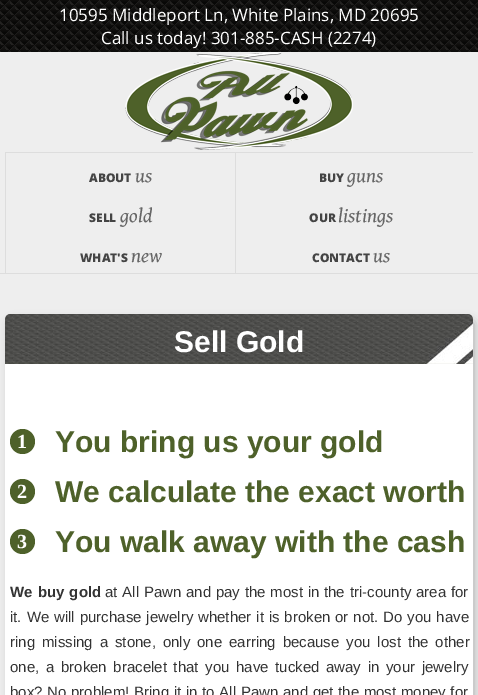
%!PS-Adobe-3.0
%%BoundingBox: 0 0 478 695
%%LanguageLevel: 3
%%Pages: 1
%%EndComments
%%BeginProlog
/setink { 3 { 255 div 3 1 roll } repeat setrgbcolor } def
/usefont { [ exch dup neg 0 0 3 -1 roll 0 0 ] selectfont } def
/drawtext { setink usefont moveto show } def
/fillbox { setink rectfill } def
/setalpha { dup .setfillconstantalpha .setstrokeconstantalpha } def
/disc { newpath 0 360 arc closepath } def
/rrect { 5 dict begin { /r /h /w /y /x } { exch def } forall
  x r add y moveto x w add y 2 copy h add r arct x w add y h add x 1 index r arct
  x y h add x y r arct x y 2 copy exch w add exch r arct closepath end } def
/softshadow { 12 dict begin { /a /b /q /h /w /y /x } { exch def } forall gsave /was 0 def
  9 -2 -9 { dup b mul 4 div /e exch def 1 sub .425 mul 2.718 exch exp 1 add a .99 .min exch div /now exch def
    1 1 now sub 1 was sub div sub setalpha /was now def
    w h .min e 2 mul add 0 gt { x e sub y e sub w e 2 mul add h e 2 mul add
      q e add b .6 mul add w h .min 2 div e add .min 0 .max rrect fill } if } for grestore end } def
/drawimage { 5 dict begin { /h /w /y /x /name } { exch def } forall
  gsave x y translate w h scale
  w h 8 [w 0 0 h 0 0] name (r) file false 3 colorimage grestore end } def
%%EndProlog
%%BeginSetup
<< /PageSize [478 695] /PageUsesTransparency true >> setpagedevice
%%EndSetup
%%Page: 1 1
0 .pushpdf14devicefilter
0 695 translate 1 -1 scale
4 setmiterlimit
0 0 478 695 238 238 238 fillbox
0 273 478 1 221 221 221 fillbox
(assets/img1.rgb) 0 0 478 52 drawimage
(10595 Middleport Ln, White Plains, MD 20695) 59 21 /OpenSans-Regular 17 255 255 255 drawtext
(Call us today! 301-885-CASH \(2274\)) 101 44 /OpenSans-Regular 17 255 255 255 drawtext
(assets/img2.rgb) 125 52 228 98 drawimage
5 152 468 1 221 221 221 fillbox
5 153 1 120 221 221 221 fillbox
(ABOUT) 89 182 /OpenSans-ExtraBold 12 68 68 68 drawtext
(us) 135 182 /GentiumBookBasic-Italic 20 102 102 102 drawtext
235 153 1 120 221 221 221 fillbox
(BUY) 319 182 /OpenSans-ExtraBold 12 68 68 68 drawtext
(guns) 347 182 /GentiumBookBasic-Italic 20 102 102 102 drawtext
(SELL) 89 222 /OpenSans-ExtraBold 12 68 68 68 drawtext
(gold) 120 222 /GentiumBookBasic-Italic 20 102 102 102 drawtext
(OUR) 309 222 /OpenSans-ExtraBold 12 68 68 68 drawtext
(listings) 338 222 /GentiumBookBasic-Italic 20 102 102 102 drawtext
(WHAT'S) 80 262 /OpenSans-ExtraBold 12 68 68 68 drawtext
(new) 131 262 /GentiumBookBasic-Italic 20 102 102 102 drawtext
(CONTACT) 312 262 /OpenSans-ExtraBold 12 68 68 68 drawtext
(us) 373 262 /GentiumBookBasic-Italic 20 102 102 102 drawtext
0 0 0 setink
10 321 464 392 3 5 0.3 softshadow
255 255 255 setink
5 314 468 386 5 rrect fill
(assets/img3.rgb) 5 314 468 50 drawimage
(Sell Gold) 174 352 /LiberationSans-Bold 30 255 255 255 drawtext
78 97 42 setink
22.5 441.5 12.5 disc fill
(1) 17 448 /LiberationSerif-Bold 20 255 255 255 drawtext
(You bring us your gold) 55 452 /LiberationSans-Bold 30 78 97 42 drawtext
22.5 491.5 12.5 disc fill
(2) 17 498 /LiberationSerif-Bold 20 255 255 255 drawtext
(We calculate the exact worth) 55 502 /LiberationSans-Bold 30 78 97 42 drawtext
22.5 541.5 12.5 disc fill
(3) 17 548 /LiberationSerif-Bold 20 255 255 255 drawtext
(You walk away with the cash) 55 552 /LiberationSans-Bold 30 78 97 42 drawtext
/LiberationSans-Bold 15 usefont
51 51 51 setink
10 597 moveto 1 0 32 (We buy gold) widthshow
/LiberationSans-Regular 15 usefont
105 597 moveto 0.6 0 32 (at All Pawn and pay the most in the tri-county area for) widthshow
10 622 moveto 0.75 0 32 (it. We will purchase jewelry whether it is broken or not. Do you have) widthshow
10 647 moveto 2.75 0 32 (ring missing a stone, only one earring because you lost the other) widthshow
10 672 moveto 2.5 0 32 (one, a broken bracelet that you have tucked away in your jewelry) widthshow
10 697 moveto 0.5 0 32 (box? No problem! Bring it in to All Pawn and get the most money for) widthshow
.poppdf14devicefilter showpage
%%EOF
